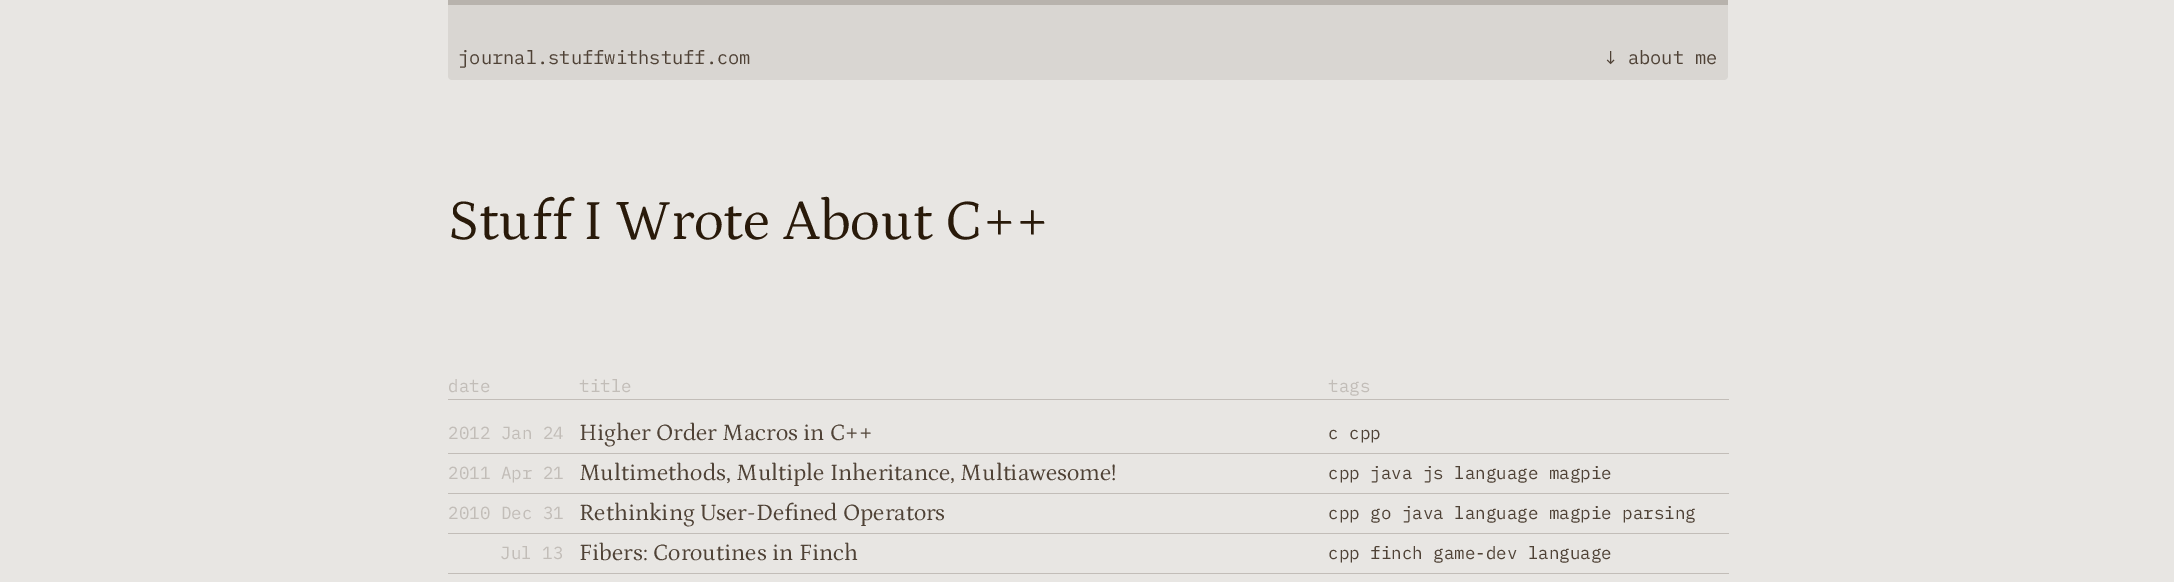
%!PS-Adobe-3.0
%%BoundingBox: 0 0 2174 582
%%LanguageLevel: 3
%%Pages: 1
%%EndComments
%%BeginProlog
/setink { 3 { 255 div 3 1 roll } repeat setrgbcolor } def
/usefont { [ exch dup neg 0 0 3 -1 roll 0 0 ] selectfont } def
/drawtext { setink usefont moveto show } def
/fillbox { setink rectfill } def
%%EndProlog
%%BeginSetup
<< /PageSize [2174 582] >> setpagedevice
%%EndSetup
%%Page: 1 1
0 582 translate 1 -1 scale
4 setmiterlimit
0 0 2174 582 232 230 227 fillbox
217 214 210 setink
448 0 moveto 1728 0 lineto 1728 76 lineto 1728 78 1726 80 1724 80 curveto 452 80 lineto 450 80 448 78 448 76 curveto closepath fill
448 0 1280 5 184 179 173 fillbox
(journal.stuffwithstuff.com) 458 64 /IBMPlexMono-Regular 18.75 79 66 54 drawtext
(↓ about me) 1605 64 /IBMPlexMono-Regular 18.75 79 66 54 drawtext
(Stuff I Wrote About C++) 448 239 /Petrona-Regular 57.5 41 26 10 drawtext
(date) 448 392 /IBMPlexMono-Regular 17.5 194 189 184 drawtext
(title) 579 392 /IBMPlexMono-Regular 17.5 194 189 184 drawtext
448 399 1281 1 194 189 184 fillbox
(tags) 1328 392 /IBMPlexMono-Regular 17.5 194 189 184 drawtext
448 453 1281 1 194 189 184 fillbox
(2012 Jan 24) 448 439 /IBMPlexMono-Regular 17.5 194 189 184 drawtext
(Higher Order Macros in C++) 579 440 /Petrona-Regular 23.75 79 66 54 drawtext
(c cpp) 1328 439 /IBMPlexMono-Regular 17.5 79 66 54 drawtext
448 493 1281 1 194 189 184 fillbox
(2011 Apr 21) 448 479 /IBMPlexMono-Regular 17.5 194 189 184 drawtext
(Multimethods, Multiple Inheritance, Multiawesome!) 579 480 /Petrona-Regular 23.75 79 66 54 drawtext
(cpp java js language magpie) 1328 479 /IBMPlexMono-Regular 17.5 79 66 54 drawtext
448 533 1281 1 194 189 184 fillbox
(2010 Dec 31) 448 519 /IBMPlexMono-Regular 17.5 194 189 184 drawtext
(Rethinking User-Defined Operators) 579 520 /Petrona-Regular 23.75 79 66 54 drawtext
(cpp go java language magpie parsing) 1328 519 /IBMPlexMono-Regular 17.5 79 66 54 drawtext
448 573 1281 1 194 189 184 fillbox
(Jul 13) 500 559 /IBMPlexMono-Regular 17.5 194 189 184 drawtext
(Fibers: Coroutines in Finch) 579 560 /Petrona-Regular 23.75 79 66 54 drawtext
(cpp finch game-dev language) 1328 559 /IBMPlexMono-Regular 17.5 79 66 54 drawtext
showpage
%%EOF
